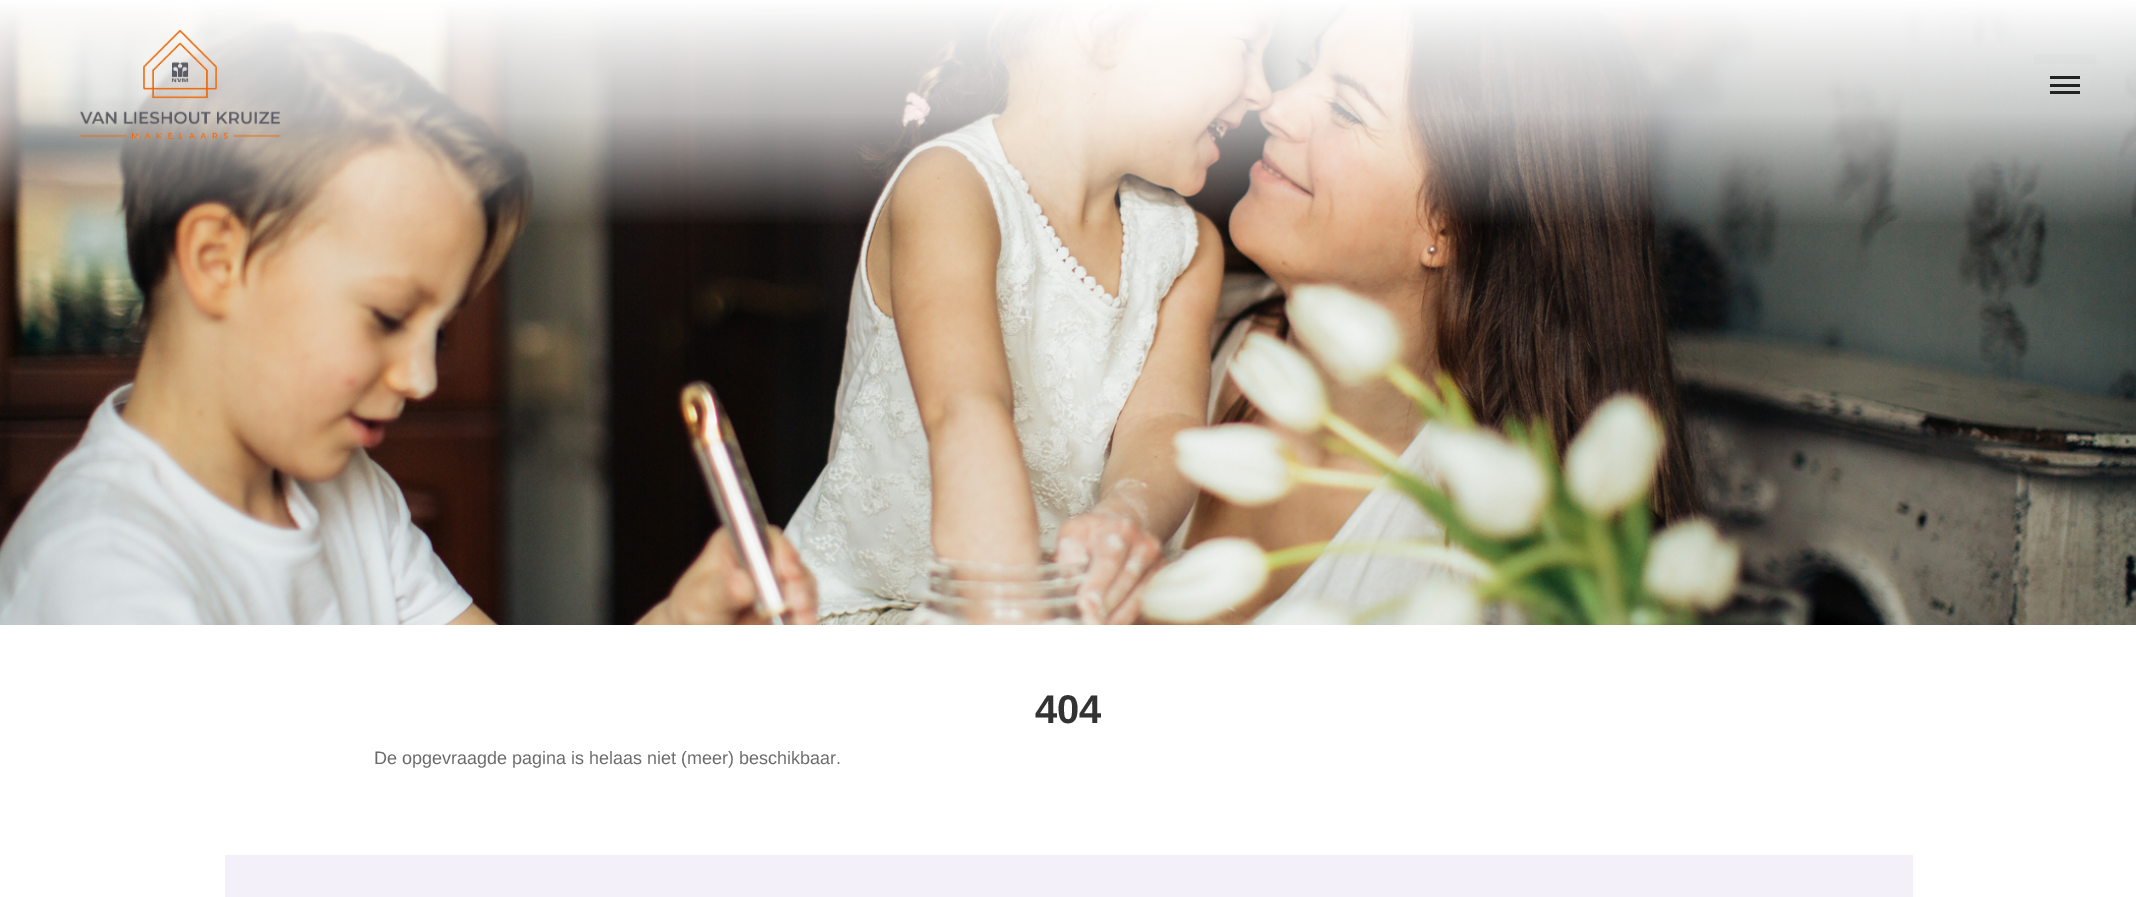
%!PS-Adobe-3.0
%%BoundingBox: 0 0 2136 897
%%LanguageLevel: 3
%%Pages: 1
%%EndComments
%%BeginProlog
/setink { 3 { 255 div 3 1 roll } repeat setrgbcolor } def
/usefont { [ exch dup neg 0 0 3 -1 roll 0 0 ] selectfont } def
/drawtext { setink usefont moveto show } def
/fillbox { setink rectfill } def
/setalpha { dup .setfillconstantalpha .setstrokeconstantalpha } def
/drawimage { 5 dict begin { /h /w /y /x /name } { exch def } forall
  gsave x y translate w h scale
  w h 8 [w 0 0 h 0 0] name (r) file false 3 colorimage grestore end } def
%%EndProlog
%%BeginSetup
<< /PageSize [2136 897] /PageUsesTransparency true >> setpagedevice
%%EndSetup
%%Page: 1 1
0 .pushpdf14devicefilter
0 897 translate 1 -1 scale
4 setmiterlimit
0 0 2136 897 255 255 255 fillbox
(assets/img1.rgb) 0 0 2136 625 drawimage
(assets/img2.rgb) 80 30 200 109 drawimage
0.03 setalpha
2034 54 62 10 136 136 136 fillbox
1 setalpha
2050 76 30 3 34 34 34 fillbox
2050 84 30 3 34 34 34 fillbox
2050 91 30 3 34 34 34 fillbox
(404) 1035 723 /LiberationSans-Bold 40 51 51 51 drawtext
(De opgevraagde pagina is helaas niet \(meer\) beschikbaar.) 374 764 /LiberationSans-Regular 18 107 107 107 drawtext
225 855 1688 42 243 240 250 fillbox
.poppdf14devicefilter showpage
%%EOF
